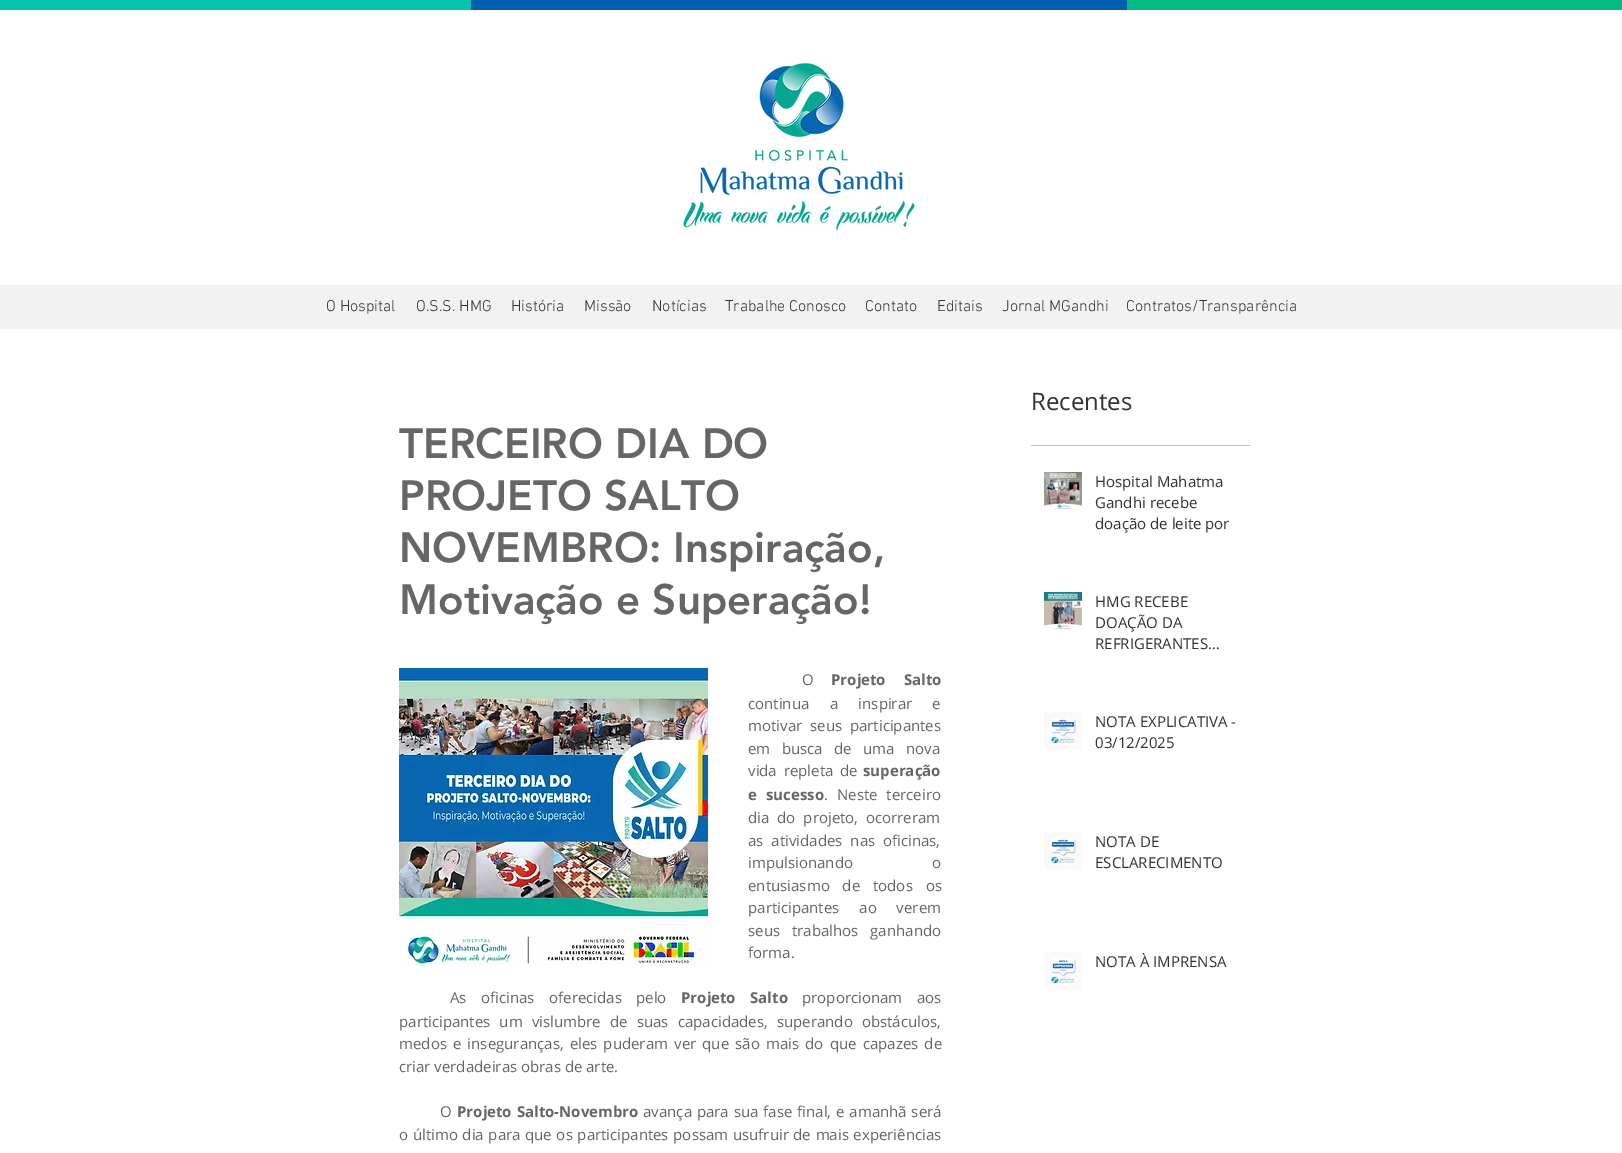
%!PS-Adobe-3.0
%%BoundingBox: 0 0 1622 1153
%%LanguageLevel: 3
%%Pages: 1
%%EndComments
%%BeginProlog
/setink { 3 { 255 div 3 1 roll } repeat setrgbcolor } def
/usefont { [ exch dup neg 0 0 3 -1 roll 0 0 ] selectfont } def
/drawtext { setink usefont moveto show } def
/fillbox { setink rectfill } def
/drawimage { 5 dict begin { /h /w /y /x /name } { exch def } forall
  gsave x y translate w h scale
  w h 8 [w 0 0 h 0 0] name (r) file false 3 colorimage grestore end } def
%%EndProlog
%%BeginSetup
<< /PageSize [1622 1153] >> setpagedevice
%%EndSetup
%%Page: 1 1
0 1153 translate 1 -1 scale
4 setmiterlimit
0 0 1622 1153 255 255 255 fillbox
0 0 471 10 5 196 171 fillbox
471 0 656 10 0 95 174 fillbox
1127 0 495 10 7 188 131 fillbox
(assets/img1.rgb) 683 63 232 168 drawimage
0 285 1622 44 242 242 242 fillbox
(O Hospital) 326 311 /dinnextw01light-Light 16 51 51 51 drawtext
(O.S.S. HMG) 416 311 /dinnextw01light-Light 16 51 51 51 drawtext
(História) 511 311 /dinnextw01light-Light 16 51 51 51 drawtext
(Missão) 584 311 /dinnextw01light-Light 16 51 51 51 drawtext
(Notícias) 652 311 /dinnextw01light-Light 16 51 51 51 drawtext
(Trabalhe Conosco) 725 311 /dinnextw01light-Light 16 51 51 51 drawtext
(Contato) 865 311 /dinnextw01light-Light 16 51 51 51 drawtext
(Editais) 937 311 /dinnextw01light-Light 16 51 51 51 drawtext
(Jornal MGandhi) 1002 311 /dinnextw01light-Light 16 51 51 51 drawtext
(Contratos/Transparência) 1126 311 /dinnextw01light-Light 16 51 51 51 drawtext
(Recentes) 1031 410 /OpenSans-Regular 24 51 51 51 drawtext
(TERCEIRO DIA DO) 399 458 /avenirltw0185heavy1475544-Black 42 102 102 102 drawtext
(PROJETO SALTO) 399 510 /avenirltw0185heavy1475544-Black 42 102 102 102 drawtext
(NOVEMBRO: Inspiração,) 399 562 /avenirltw0185heavy1475544-Black 42 102 102 102 drawtext
(Motivação e Superação!) 399 614 /avenirltw0185heavy1475544-Black 42 102 102 102 drawtext
(assets/img2.rgb) 399 668 309 297 drawimage
(O) 802 685 /OpenSans-Regular 15 102 102 102 drawtext
/OpenSans-Bold 15 usefont
831 685 moveto 14 0 32 (Projeto Salto) widthshow
/OpenSans-Regular 15 usefont
748 709 moveto 16.5 0 32 (continua a inspirar e) widthshow
748 731 moveto 4 0 32 (motivar seus participantes) widthshow
748 754 moveto 7.5 0 32 (em busca de uma nova) widthshow
748 776 moveto 3 0 32 (vida repleta de) widthshow
(superação) 863 776 /OpenSans-Bold 15 102 102 102 drawtext
748 800 moveto 5 0 32 (e sucesso) widthshow
/OpenSans-Regular 15 usefont
824 800 moveto 5 0 32 (. Neste terceiro) widthshow
748 823 moveto 4 0 32 (dia do projeto, ocorreram) widthshow
748 846 moveto 4 0 32 (as atividades nas oficinas,) widthshow
748 868 moveto 75 0 32 (impulsionando o) widthshow
748 891 moveto 9 0 32 (entusiasmo de todos os) widthshow
748 913 moveto 16 0 32 (participantes ao verem) widthshow
748 936 moveto 8 0 32 (seus trabalhos ganhando) widthshow
(forma.) 748 958 /OpenSans-Regular 15 102 102 102 drawtext
450 1003 moveto 10.5 0 32 (As oficinas oferecidas pelo) widthshow
/OpenSans-Bold 15 usefont
681 1003 moveto 10.5 0 32 (Projeto Salto) widthshow
/OpenSans-Regular 15 usefont
802 1003 moveto 10.5 0 32 (proporcionam aos) widthshow
399 1027 moveto 5.25 0 32 (participantes um vislumbre de suas capacidades, superando obstáculos,) widthshow
399 1049 moveto 2.25 0 32 (medos e inseguranças, eles puderam ver que são mais do que capazes de) widthshow
(criar verdadeiras obras de arte.) 399 1072 /OpenSans-Regular 15 102 102 102 drawtext
(O) 440 1117 /OpenSans-Regular 15 102 102 102 drawtext
/OpenSans-Bold 15 usefont
457 1117 moveto 1 0 32 (Projeto Salto-Novembro) widthshow
/OpenSans-Regular 15 usefont
643 1117 moveto 1 0 32 (avança para sua fase final, e amanhã será) widthshow
399 1140 moveto 0.75 0 32 (o último dia para que os participantes possam usufruir de mais experiências) widthshow
1031 445 220 1 196 196 196 fillbox
(assets/img3.rgb) 1044 472 38 38 drawimage
(Hospital Mahatma) 1095 487 /OpenSans-Regular 15 51 51 51 drawtext
(Gandhi recebe) 1095 508 /OpenSans-Regular 15 51 51 51 drawtext
(doação de leite por) 1095 529 /OpenSans-Regular 15 51 51 51 drawtext
(assets/img4.rgb) 1044 592 38 38 drawimage
(HMG RECEBE) 1095 607 /OpenSans-Regular 15 51 51 51 drawtext
(DOAÇÃO DA) 1095 628 /OpenSans-Regular 15 51 51 51 drawtext
(REFRIGERANTES…) 1095 649 /OpenSans-Regular 15 51 51 51 drawtext
(assets/img5.rgb) 1044 712 38 38 drawimage
(assets/img6.rgb) 1046 714 36 36 drawimage
(NOTA EXPLICATIVA -) 1095 727 /OpenSans-Regular 15 51 51 51 drawtext
(03/12/2025) 1095 748 /OpenSans-Regular 15 51 51 51 drawtext
(assets/img7.rgb) 1044 832 38 38 drawimage
(assets/img8.rgb) 1045 834 37 36 drawimage
(NOTA DE) 1095 847 /OpenSans-Regular 15 51 51 51 drawtext
(ESCLARECIMENTO) 1095 868 /OpenSans-Regular 15 51 51 51 drawtext
(assets/img9.rgb) 1044 952 37 38 drawimage
(assets/img10.rgb) 1081 953 1 37 drawimage
(NOTA À IMPRENSA) 1095 967 /OpenSans-Regular 15 51 51 51 drawtext
showpage
%%EOF
